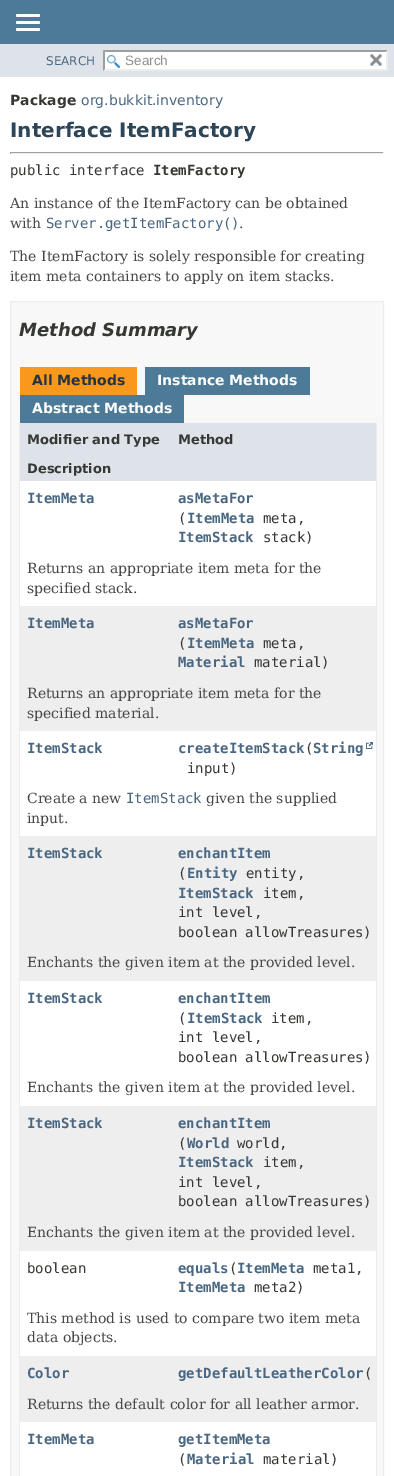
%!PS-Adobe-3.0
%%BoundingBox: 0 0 394 1476
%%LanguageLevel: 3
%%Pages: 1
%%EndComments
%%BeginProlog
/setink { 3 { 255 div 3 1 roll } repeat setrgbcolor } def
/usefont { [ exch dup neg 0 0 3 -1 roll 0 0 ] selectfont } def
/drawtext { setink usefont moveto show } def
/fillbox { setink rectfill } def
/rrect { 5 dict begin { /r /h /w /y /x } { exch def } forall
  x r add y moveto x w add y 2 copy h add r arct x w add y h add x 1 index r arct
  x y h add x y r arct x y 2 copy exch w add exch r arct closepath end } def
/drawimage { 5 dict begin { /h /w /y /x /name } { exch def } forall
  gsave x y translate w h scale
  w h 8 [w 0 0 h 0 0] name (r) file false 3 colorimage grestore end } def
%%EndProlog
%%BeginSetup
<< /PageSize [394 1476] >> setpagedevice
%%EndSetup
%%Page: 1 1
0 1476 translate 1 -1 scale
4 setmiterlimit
0 0 394 1476 255 255 255 fillbox
0 0 394 44 77 122 151 fillbox
255 255 255 setink
16 14 24 3 1.5 rrect fill
16 21 24 3 1.5 rrect fill
16 28 24 3 1.5 rrect fill
0 44 394 33 222 227 233 fillbox
(SEARCH) 46 65 /DejaVuSans-Regular 12 74 103 130 drawtext
103 50 285 21 255 255 255 fillbox
(assets/img1.rgb) 107 55 13 13 drawimage
158 158 158 setink
103 50 moveto 388 50 lineto 386 52 lineto 105 52 lineto closepath fill
237 237 237 setink
388 50 moveto 388 71 lineto 386 69 lineto 386 52 lineto closepath fill
388 71 moveto 103 71 lineto 105 69 lineto 386 69 lineto closepath fill
158 158 158 setink
103 71 moveto 103 50 lineto 105 52 lineto 105 69 lineto closepath fill
(Search) 125 65 /LiberationSans-Regular 13.5 144 144 144 drawtext
(assets/img2.rgb) 370 53 12 13 drawimage
(Package) 10 105 /DejaVuSans-Bold 14 53 56 51 drawtext
(org.bukkit.inventory) 81 105 /DejaVuSans-Regular 14 74 103 130 drawtext
(Interface ItemFactory) 10 137 /DejaVuSans-Bold 20 44 69 87 drawtext
10 152 374 1 159 159 159 fillbox
383 152 1 2 238 238 238 fillbox
10 153 374 1 238 238 238 fillbox
10 152 1 2 159 159 159 fillbox
(public interface) 10 175 /DejaVuSansMono-Regular 14 53 56 51 drawtext
(ItemFactory) 153 175 /DejaVuSansMono-Bold 14 53 56 51 drawtext
(An instance of the ItemFactory can be obtained) 10 208 /DejaVuSerif-Regular 14 71 71 71 drawtext
(with) 10 228 /DejaVuSerif-Regular 14 71 71 71 drawtext
(Server.getItemFactory\(\)) 46 228 /DejaVuSansMono-Regular 14 74 103 130 drawtext
(.) 239 228 /DejaVuSerif-Regular 14 71 71 71 drawtext
(The ItemFactory is solely responsible for creating) 10 261 /DejaVuSerif-Regular 14 71 71 71 drawtext
(item meta containers to apply on item stacks.) 10 281 /DejaVuSerif-Regular 14 71 71 71 drawtext
248 248 248 setink
10.5 301.5 moveto 383.5 301.5 lineto 383.5 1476.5 lineto 10.5 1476.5 lineto closepath gsave fill grestore
237 237 237 setink
stroke
(Method Summary) 19 336 /DejaVuSans-BoldItalic 18 53 56 51 drawtext
20 367 117 28 248 152 29 fillbox
(All Methods) 32 385 /DejaVuSans-Bold 14 37 52 65 drawtext
145 367 165 28 77 122 151 fillbox
(Instance Methods) 157 385 /DejaVuSans-Bold 14 255 255 255 drawtext
20 395 164 28 77 122 151 fillbox
(Abstract Methods) 32 413 /DejaVuSans-Bold 14 255 255 255 drawtext
376 423 1 1053 237 237 237 fillbox
19 423 1 1053 237 237 237 fillbox
20 423 356 58 222 227 233 fillbox
(Modifier and Type) 27 444 /DejaVuSans-Bold 13 53 56 51 drawtext
(Method) 178 444 /DejaVuSans-Bold 13 53 56 51 drawtext
(Description) 27 473 /DejaVuSans-Bold 13 53 56 51 drawtext
20 481 356 125 255 255 255 fillbox
(ItemMeta) 27 503 /DejaVuSansMono-Bold 14 74 103 130 drawtext
(asMetaFor) 178 503 /DejaVuSansMono-Bold 14 74 103 130 drawtext
(\() 178 523 /DejaVuSansMono-Regular 14 53 56 51 drawtext
(ItemMeta) 187 523 /DejaVuSansMono-Bold 14 74 103 130 drawtext
(meta,) 263 523 /DejaVuSansMono-Regular 14 53 56 51 drawtext
(ItemStack) 178 542 /DejaVuSansMono-Bold 14 74 103 130 drawtext
(stack\)) 263 542 /DejaVuSansMono-Regular 14 53 56 51 drawtext
(Returns an appropriate item meta for the) 27 573 /DejaVuSerif-Regular 14 71 71 71 drawtext
(specified stack.) 27 593 /DejaVuSerif-Regular 14 71 71 71 drawtext
20 606 356 125 238 238 239 fillbox
(ItemMeta) 27 628 /DejaVuSansMono-Bold 14 74 103 130 drawtext
(asMetaFor) 178 628 /DejaVuSansMono-Bold 14 74 103 130 drawtext
(\() 178 648 /DejaVuSansMono-Regular 14 53 56 51 drawtext
(ItemMeta) 187 648 /DejaVuSansMono-Bold 14 74 103 130 drawtext
(meta,) 263 648 /DejaVuSansMono-Regular 14 53 56 51 drawtext
(Material) 178 667 /DejaVuSansMono-Bold 14 74 103 130 drawtext
(material\)) 254 667 /DejaVuSansMono-Regular 14 53 56 51 drawtext
(Returns an appropriate item meta for the) 27 698 /DejaVuSerif-Regular 14 71 71 71 drawtext
(specified material.) 27 718 /DejaVuSerif-Regular 14 71 71 71 drawtext
20 731 356 105 255 255 255 fillbox
(ItemStack) 27 753 /DejaVuSansMono-Bold 14 74 103 130 drawtext
(createItemStack String) 178 753 /DejaVuSansMono-Bold 14 74 103 130 drawtext
(\() 305 753 /DejaVuSansMono-Regular 14 53 56 51 drawtext
(assets/img3.rgb) 366 742 7 7 drawimage
(input\)) 187 773 /DejaVuSansMono-Regular 14 53 56 51 drawtext
(Create a new) 27 803 /DejaVuSerif-Regular 14 71 71 71 drawtext
(ItemStack) 126 803 /DejaVuSansMono-Regular 14 74 103 130 drawtext
(given the supplied) 206 803 /DejaVuSerif-Regular 14 71 71 71 drawtext
(input.) 27 823 /DejaVuSerif-Regular 14 71 71 71 drawtext
20 836 356 145 238 238 239 fillbox
(ItemStack) 27 858 /DejaVuSansMono-Bold 14 74 103 130 drawtext
(enchantItem) 178 858 /DejaVuSansMono-Bold 14 74 103 130 drawtext
(\() 178 878 /DejaVuSansMono-Regular 14 53 56 51 drawtext
(Entity) 187 878 /DejaVuSansMono-Bold 14 74 103 130 drawtext
(entity,) 246 878 /DejaVuSansMono-Regular 14 53 56 51 drawtext
(ItemStack) 178 898 /DejaVuSansMono-Bold 14 74 103 130 drawtext
(item,) 263 898 /DejaVuSansMono-Regular 14 53 56 51 drawtext
(int level,) 178 917 /DejaVuSansMono-Regular 14 53 56 51 drawtext
(boolean allowTreasures\)) 178 937 /DejaVuSansMono-Regular 14 53 56 51 drawtext
(Enchants the given item at the provided level.) 27 967 /DejaVuSerif-Regular 14 71 71 71 drawtext
20 981 356 125 255 255 255 fillbox
(ItemStack) 27 1003 /DejaVuSansMono-Bold 14 74 103 130 drawtext
(enchantItem) 178 1003 /DejaVuSansMono-Bold 14 74 103 130 drawtext
(\() 178 1023 /DejaVuSansMono-Regular 14 53 56 51 drawtext
(ItemStack) 187 1023 /DejaVuSansMono-Bold 14 74 103 130 drawtext
(item,) 271 1023 /DejaVuSansMono-Regular 14 53 56 51 drawtext
(int level,) 178 1042 /DejaVuSansMono-Regular 14 53 56 51 drawtext
(boolean allowTreasures\)) 178 1062 /DejaVuSansMono-Regular 14 53 56 51 drawtext
(Enchants the given item at the provided level.) 27 1092 /DejaVuSerif-Regular 14 71 71 71 drawtext
20 1106 356 145 238 238 239 fillbox
(ItemStack) 27 1128 /DejaVuSansMono-Bold 14 74 103 130 drawtext
(enchantItem) 178 1128 /DejaVuSansMono-Bold 14 74 103 130 drawtext
(\() 178 1148 /DejaVuSansMono-Regular 14 53 56 51 drawtext
(World) 187 1148 /DejaVuSansMono-Bold 14 74 103 130 drawtext
(world,) 237 1148 /DejaVuSansMono-Regular 14 53 56 51 drawtext
(ItemStack) 178 1167 /DejaVuSansMono-Bold 14 74 103 130 drawtext
(item,) 263 1167 /DejaVuSansMono-Regular 14 53 56 51 drawtext
(int level,) 178 1187 /DejaVuSansMono-Regular 14 53 56 51 drawtext
(boolean allowTreasures\)) 178 1206 /DejaVuSansMono-Regular 14 53 56 51 drawtext
(Enchants the given item at the provided level.) 27 1237 /DejaVuSerif-Regular 14 71 71 71 drawtext
20 1251 356 105 255 255 255 fillbox
(boolean) 27 1273 /DejaVuSansMono-Regular 14 53 56 51 drawtext
(equals ItemMeta) 178 1273 /DejaVuSansMono-Bold 14 74 103 130 drawtext
(\() 229 1273 /DejaVuSansMono-Regular 14 53 56 51 drawtext
(meta1,) 313 1273 /DejaVuSansMono-Regular 14 53 56 51 drawtext
(ItemMeta) 178 1292 /DejaVuSansMono-Bold 14 74 103 130 drawtext
(meta2\)) 254 1292 /DejaVuSansMono-Regular 14 53 56 51 drawtext
(This method is used to compare two item meta) 27 1323 /DejaVuSerif-Regular 14 71 71 71 drawtext
(data objects.) 27 1342 /DejaVuSerif-Regular 14 71 71 71 drawtext
20 1356 356 66 238 238 239 fillbox
(Color) 27 1378 /DejaVuSansMono-Bold 14 74 103 130 drawtext
(getDefaultLeatherColor) 178 1378 /DejaVuSansMono-Bold 14 74 103 130 drawtext
(\() 364 1378 /DejaVuSansMono-Regular 14 53 56 51 drawtext
(Returns the default color for all leather armor.) 27 1409 /DejaVuSerif-Regular 14 71 71 71 drawtext
20 1422 356 54 255 255 255 fillbox
(ItemMeta) 27 1444 /DejaVuSansMono-Bold 14 74 103 130 drawtext
(getItemMeta) 178 1444 /DejaVuSansMono-Bold 14 74 103 130 drawtext
(\() 178 1464 /DejaVuSansMono-Regular 14 53 56 51 drawtext
(Material) 187 1464 /DejaVuSansMono-Bold 14 74 103 130 drawtext
(material\)) 263 1464 /DejaVuSansMono-Regular 14 53 56 51 drawtext
showpage
%%EOF
